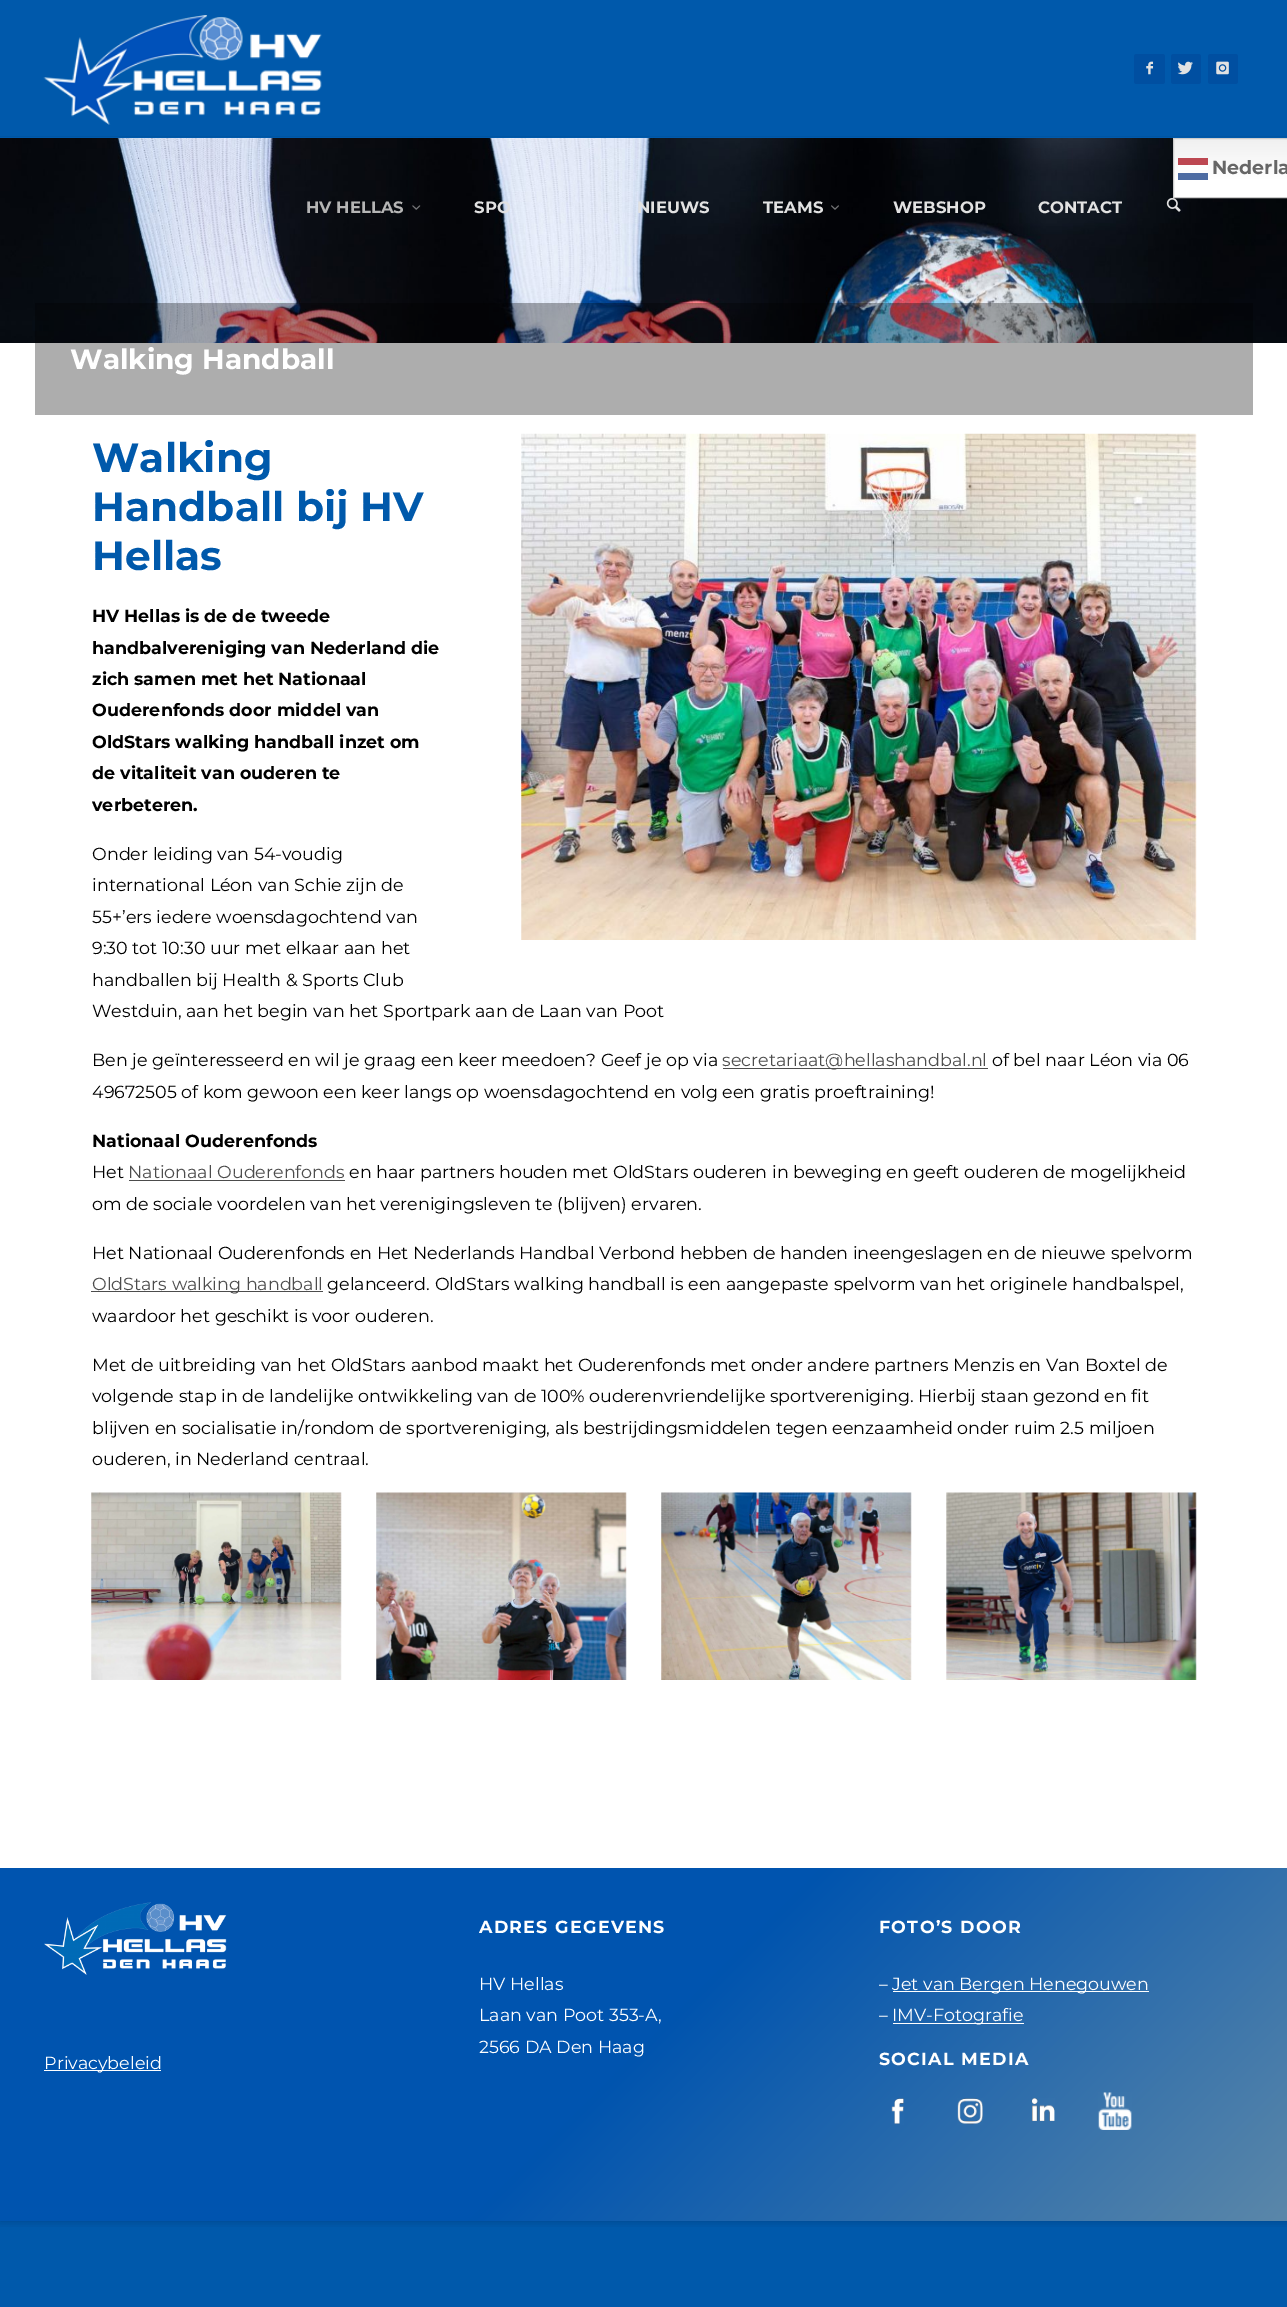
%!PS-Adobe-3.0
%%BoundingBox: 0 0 1287 2307
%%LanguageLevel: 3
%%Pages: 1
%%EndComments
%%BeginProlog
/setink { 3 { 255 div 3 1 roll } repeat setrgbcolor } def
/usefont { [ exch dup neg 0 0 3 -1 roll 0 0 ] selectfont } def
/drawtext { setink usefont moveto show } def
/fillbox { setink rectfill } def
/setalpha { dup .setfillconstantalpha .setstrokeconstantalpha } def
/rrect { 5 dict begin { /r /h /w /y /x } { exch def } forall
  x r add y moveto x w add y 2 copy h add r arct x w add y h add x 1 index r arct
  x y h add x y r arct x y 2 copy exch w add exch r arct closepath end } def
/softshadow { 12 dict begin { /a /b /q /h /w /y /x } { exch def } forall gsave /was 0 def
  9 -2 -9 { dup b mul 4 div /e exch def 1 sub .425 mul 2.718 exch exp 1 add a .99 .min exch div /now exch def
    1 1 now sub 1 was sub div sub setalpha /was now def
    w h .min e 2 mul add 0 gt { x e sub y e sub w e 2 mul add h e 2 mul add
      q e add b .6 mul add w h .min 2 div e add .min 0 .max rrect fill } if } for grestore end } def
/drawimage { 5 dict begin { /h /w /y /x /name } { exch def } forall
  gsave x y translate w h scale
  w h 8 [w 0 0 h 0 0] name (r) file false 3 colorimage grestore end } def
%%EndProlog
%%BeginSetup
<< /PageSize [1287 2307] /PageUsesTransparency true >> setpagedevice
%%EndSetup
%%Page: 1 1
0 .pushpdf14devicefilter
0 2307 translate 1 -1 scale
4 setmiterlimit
0 0 1287 2307 0 89 171 fillbox
gsave
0 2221 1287 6 rectclip
0 0 0 setink
0 0 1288 2221 0 5 0.2 softshadow
grestore
0 136 1287 1 0 85 162 fillbox
(assets/img1.rgb) 43 15 279 110 drawimage
0 79 161 setink
1134 54 31 30 2.5 rrect fill
(assets/img2.rgb) 1146 61 8 14 drawimage
1171 54 30 30 2.5 rrect fill
(assets/img3.rgb) 1177 61 16 14 drawimage
1208 54 30 30 2.5 rrect fill
(assets/img4.rgb) 1216 61 13 14 drawimage
(assets/img8.rgb) 0 138 1287 205 drawimage
gsave 1174 139 moveto 1287 139 lineto 1287 197 lineto 1174 197 lineto closepath clip newpath
<< /ShadingType 2 /ColorSpace /DeviceRGB /Coords [1281 137 1281 198] /Extend [true true] /Function << /FunctionType 3 /Domain [0 1] /Functions [<< /FunctionType 2 /Domain [0 1] /C0 [0.937 0.937 0.937] /C1 [1 1 1] /N 1 >> << /FunctionType 2 /Domain [0 1] /C0 [1 1 1] /C1 [1 1 1] /N 1 >>] /Bounds [0.7] /Encode [0 1 0 1] >> >> shfill grestore
(assets/img7.rgb) 1166 197 15 15 drawimage
204 204 204 setink
1173.5 138.5 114 59 rectstroke
1178 158 30 7 189 72 82 fillbox
(Nederla) 1212 174 /Montserrat-Bold 19 102 102 102 drawtext
0.8 setalpha
1178 165 30 5 255 255 255 fillbox
1 setalpha
1178 173 30 7 77 107 162 fillbox
(HV HELLAS) 306 213 /Montserrat-Bold 16.5 181 181 181 drawtext
(assets/img5.rgb) 412 205 9 5 drawimage
(SPO) 474 213 /Montserrat-Bold 16.5 226 226 226 drawtext
(NIEUWS) 637 213 /Montserrat-Bold 16.5 226 226 226 drawtext
(TEAMS) 763 213 /Montserrat-Bold 16.5 226 226 226 drawtext
(assets/img6.rgb) 831 205 8 5 drawimage
(WEBSHOP) 893 213 /Montserrat-Bold 16.5 226 226 226 drawtext
(CONTACT) 1038 213 /Montserrat-Bold 16.5 226 226 226 drawtext
0 343 1287 1525 255 255 255 fillbox
0.32 setalpha
35 303 1218 112 0 0 0 fillbox
1 setalpha
(Walking Handball) 70 369 /Montserrat-Bold 28 255 255 255 drawtext
(Walking) 92 472 /Montserrat-Bold 40.75 0 89 171 drawtext
(assets/img9.rgb) 521 433 676 507 drawimage
(Handball bij HV) 92 521 /Montserrat-Bold 40.75 0 89 171 drawtext
(Hellas) 92 570 /Montserrat-Bold 40.75 0 89 171 drawtext
(HV Hellas is de de tweede) 92 622 /Montserrat-Bold 17.5 0 0 0 drawtext
(handbalvereniging van Nederland die) 92 654 /Montserrat-Bold 17.5 0 0 0 drawtext
(zich samen met het Nationaal) 92 685 /Montserrat-Bold 17.5 0 0 0 drawtext
(Ouderenfonds door middel van) 92 716 /Montserrat-Bold 17.5 0 0 0 drawtext
(OldStars walking handball inzet om) 92 748 /Montserrat-Bold 17.5 0 0 0 drawtext
(de vitaliteit van ouderen te) 92 779 /Montserrat-Bold 17.5 0 0 0 drawtext
(verbeteren.) 92 811 /Montserrat-Bold 17.5 0 0 0 drawtext
(Onder leiding van 54-voudig) 92 860 /Montserrat-Regular 17.5 0 0 0 drawtext
(international Léon van Schie zijn de) 92 891 /Montserrat-Regular 17.5 0 0 0 drawtext
(55+’ers iedere woensdagochtend van) 92 923 /Montserrat-Regular 17.5 0 0 0 drawtext
(9:30 tot 10:30 uur met elkaar aan het) 92 954 /Montserrat-Regular 17.5 0 0 0 drawtext
(handballen bij Health & Sports Club) 92 986 /Montserrat-Regular 17.5 0 0 0 drawtext
(Westduin, aan het begin van het Sportpark aan de Laan van Poot) 92 1017 /Montserrat-Regular 17.5 0 0 0 drawtext
(Ben je geïnteresseerd en wil je graag een keer meedoen? Geef je op via) 92 1066 /Montserrat-Regular 17.5 0 0 0 drawtext
723 1068 265 1 76 76 76 fillbox
(secretariaat@hellashandbal.nl) 722 1066 /Montserrat-Regular 17.5 76 76 76 drawtext
(of bel naar Léon via 06) 992 1066 /Montserrat-Regular 17.5 0 0 0 drawtext
(49672505 of kom gewoon een keer langs op woensdagochtend en volg een gratis proeftraining!) 92 1098 /Montserrat-Regular 17.5 0 0 0 drawtext
(Nationaal Ouderenfonds) 92 1147 /Montserrat-Bold 17.5 0 0 0 drawtext
(Het) 92 1178 /Montserrat-Regular 17.5 0 0 0 drawtext
(Nationaal Ouderenfonds) 128 1178 /Montserrat-Regular 17.5 76 76 76 drawtext
129 1180 216 1 76 76 76 fillbox
(en haar partners houden met OldStars ouderen in beweging en geeft ouderen de mogelijkheid) 349 1178 /Montserrat-Regular 17.5 0 0 0 drawtext
(om de sociale voordelen van het verenigingsleven te \(blijven\) ervaren.) 92 1210 /Montserrat-Regular 17.5 0 0 0 drawtext
(Het Nationaal Ouderenfonds en Het Nederlands Handbal Verbond hebben de handen ineengeslagen en de nieuwe spelvorm) 92 1259 /Montserrat-Regular 17.5 0 0 0 drawtext
91 1291 232 1 76 76 76 fillbox
(OldStars walking handball) 92 1290 /Montserrat-Regular 17.5 76 76 76 drawtext
(gelanceerd. OldStars walking handball is een aangepaste spelvorm van het originele handbalspel,) 327 1290 /Montserrat-Regular 17.5 0 0 0 drawtext
(waardoor het geschikt is voor ouderen.) 92 1322 /Montserrat-Regular 17.5 0 0 0 drawtext
(Met de uitbreiding van het OldStars aanbod maakt het Ouderenfonds met onder andere partners Menzis en Van Boxtel de) 92 1371 /Montserrat-Regular 17.5 0 0 0 drawtext
(volgende stap in de landelijke ontwikkeling van de 100% ouderenvriendelijke sportvereniging. Hierbij staan gezond en fit) 92 1402 /Montserrat-Regular 17.5 0 0 0 drawtext
(blijven en socialisatie in/rondom de sportvereniging, als bestrijdingsmiddelen tegen eenzaamheid onder ruim 2.5 miljoen) 92 1434 /Montserrat-Regular 17.5 0 0 0 drawtext
(ouderen, in Nederland centraal.) 92 1465 /Montserrat-Regular 17.5 0 0 0 drawtext
(assets/img10.rgb) 91 1492 251 188 drawimage
(assets/img11.rgb) 376 1492 251 188 drawimage
(assets/img12.rgb) 661 1492 251 188 drawimage
(assets/img13.rgb) 946 1492 251 188 drawimage
gsave 0 1868 moveto 1287 1868 lineto 1287 2221 lineto 0 2221 lineto closepath clip newpath
<< /ShadingType 2 /ColorSpace /DeviceRGB /Coords [233 1634 1054 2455] /Extend [true true] /Function << /FunctionType 3 /Domain [0 1] /Functions [<< /FunctionType 2 /Domain [0 1] /C0 [0 0.329 0.686] /C1 [0 0.329 0.686] /N 1 >> << /FunctionType 2 /Domain [0 1] /C0 [0 0.329 0.686] /C1 [0.357 0.529 0.663] /N 1 >>] /Bounds [0.5] /Encode [0 1 0 1] >> >> shfill grestore
/Montserrat-Bold 17.5 usefont
255 255 255 setink
479 1933 moveto 1.25 0 (ADRES GEGEVENS) ashow
(HV Hellas) 479 1990 /Montserrat-Regular 17.5 255 255 255 drawtext
(Laan van Poot 353-A,) 479 2021 /Montserrat-Regular 17.5 255 255 255 drawtext
(2566 DA Den Haag) 479 2053 /Montserrat-Regular 17.5 255 255 255 drawtext
/Montserrat-Bold 17.5 usefont
879 1933 moveto 1.25 0 (FOTO’S DOOR) ashow
(–) 879 1990 /Montserrat-Regular 17.5 255 255 255 drawtext
893 1991 256 1 255 255 255 fillbox
(Jet van Bergen Henegouwen) 892 1990 /Montserrat-Regular 17.5 255 255 255 drawtext
(–) 879 2021 /Montserrat-Regular 17.5 255 255 255 drawtext
893 2023 131 1 255 255 255 fillbox
(IMV-Fotografie) 892 2021 /Montserrat-Regular 17.5 255 255 255 drawtext
/Montserrat-Bold 17.5 usefont
879 2065 moveto 1.25 0 (SOCIAL MEDIA) ashow
(assets/img14.rgb) 891 2098 13 27 drawimage
(assets/img15.rgb) 957 2098 26 27 drawimage
(assets/img16.rgb) 1031 2098 24 23 drawimage
(assets/img17.rgb) 1098 2092 34 38 drawimage
(assets/img18.rgb) 44 1902 183 73 drawimage
44 2070 117 1 255 255 255 fillbox
(Privacybeleid) 44 2069 /Montserrat-Regular 17.5 255 255 255 drawtext
.poppdf14devicefilter showpage
%%EOF
